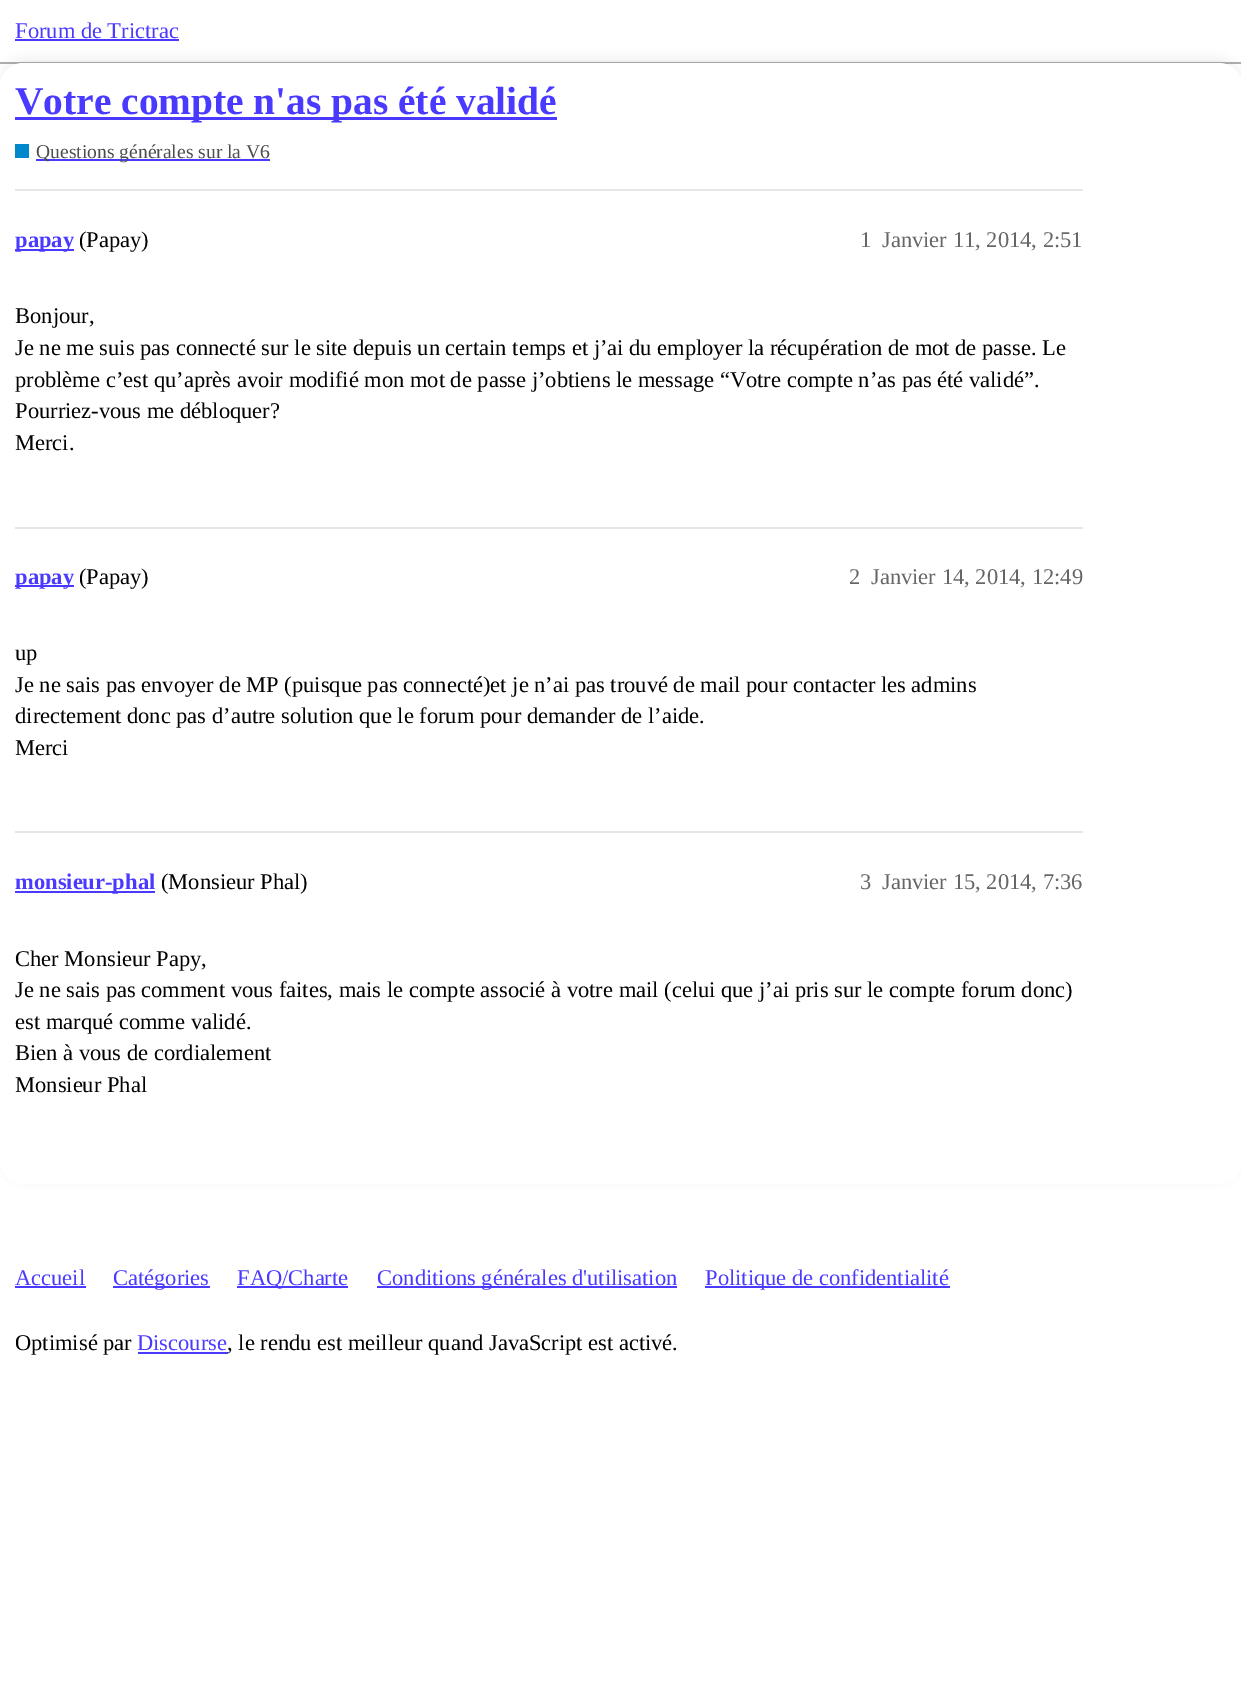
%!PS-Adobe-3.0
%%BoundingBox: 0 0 1241 1703
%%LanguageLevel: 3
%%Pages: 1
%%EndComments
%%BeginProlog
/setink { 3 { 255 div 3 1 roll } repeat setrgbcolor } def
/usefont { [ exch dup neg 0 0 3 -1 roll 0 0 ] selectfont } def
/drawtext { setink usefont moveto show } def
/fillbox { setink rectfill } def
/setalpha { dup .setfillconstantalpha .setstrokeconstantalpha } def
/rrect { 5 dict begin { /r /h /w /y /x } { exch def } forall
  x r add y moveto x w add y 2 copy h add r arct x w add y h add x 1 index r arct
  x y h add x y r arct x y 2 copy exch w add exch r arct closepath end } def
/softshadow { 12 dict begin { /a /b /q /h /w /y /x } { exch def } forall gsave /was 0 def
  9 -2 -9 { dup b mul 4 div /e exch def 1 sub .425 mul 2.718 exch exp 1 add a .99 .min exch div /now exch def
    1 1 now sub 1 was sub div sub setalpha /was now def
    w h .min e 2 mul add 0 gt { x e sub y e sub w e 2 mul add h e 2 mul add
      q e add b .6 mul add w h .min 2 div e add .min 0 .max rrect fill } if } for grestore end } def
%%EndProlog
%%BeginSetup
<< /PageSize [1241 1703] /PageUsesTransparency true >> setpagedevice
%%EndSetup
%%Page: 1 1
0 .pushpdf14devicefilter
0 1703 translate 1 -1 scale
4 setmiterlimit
0 0 1241 1703 255 255 255 fillbox
0 62 1241 2 175 175 175 fillbox
(Forum de Trictrac) 15 38 /LiberationSerif-Regular 22.5 74 58 255 drawtext
15 39 164 2 74 58 255 fillbox
0 0 0 setink
8 66 1227 1106 15 7.5 0.2 softshadow
255 255 255 setink
0 63 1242 1121 23 rrect fill
15 117 542 3 74 58 255 fillbox
(Votre compte n'as pas été validé) 15 114 /LiberationSerif-Bold 39.4 74 58 255 drawtext
15 144 14 14 0 136 204 fillbox
36 159 234 2 74 58 255 fillbox
(Questions générales sur la V6) 36 158 /LiberationSerif-Regular 19.6 77 77 77 drawtext
15 189 1068 2 230 230 230 fillbox
15 249 59 2 74 58 255 fillbox
(papay) 15 247 /LiberationSerif-Bold 22.5 74 58 255 drawtext
(\(Papay\)) 79 247 /LiberationSerif-Regular 22.5 0 0 0 drawtext
(1) 860 247 /LiberationSerif-Regular 22.5 102 102 102 drawtext
(Janvier 11, 2014, 2:51) 882 247 /LiberationSerif-Regular 22.5 102 102 102 drawtext
(Bonjour,) 15 323 /LiberationSerif-Regular 22.5 0 0 0 drawtext
(Je ne me suis pas connecté sur le site depuis un certain temps et j’ai du employer la récupération de mot de passe. Le) 15 355 /LiberationSerif-Regular 22.5 0 0 0 drawtext
(problème c’est qu’après avoir modifié mon mot de passe j’obtiens le message “Votre compte n’as pas été validé”.) 15 387 /LiberationSerif-Regular 22.5 0 0 0 drawtext
(Pourriez-vous me débloquer?) 15 418 /LiberationSerif-Regular 22.5 0 0 0 drawtext
(Merci.) 15 450 /LiberationSerif-Regular 22.5 0 0 0 drawtext
15 527 1068 2 230 230 230 fillbox
15 585 59 2 74 58 255 fillbox
(papay) 15 584 /LiberationSerif-Bold 22.5 74 58 255 drawtext
(\(Papay\)) 79 584 /LiberationSerif-Regular 22.5 0 0 0 drawtext
(2) 849 584 /LiberationSerif-Regular 22.5 102 102 102 drawtext
(Janvier 14, 2014, 12:49) 871 584 /LiberationSerif-Regular 22.5 102 102 102 drawtext
(up) 15 660 /LiberationSerif-Regular 22.5 0 0 0 drawtext
(Je ne sais pas envoyer de MP \(puisque pas connecté\)et je n’ai pas trouvé de mail pour contacter les admins) 15 692 /LiberationSerif-Regular 22.5 0 0 0 drawtext
(directement donc pas d’autre solution que le forum pour demander de l’aide.) 15 723 /LiberationSerif-Regular 22.5 0 0 0 drawtext
(Merci) 15 755 /LiberationSerif-Regular 22.5 0 0 0 drawtext
15 831 1068 2 230 230 230 fillbox
15 891 140 2 74 58 255 fillbox
(monsieur-phal) 15 889 /LiberationSerif-Bold 22.5 74 58 255 drawtext
(\(Monsieur Phal\)) 161 889 /LiberationSerif-Regular 22.5 0 0 0 drawtext
(3) 860 889 /LiberationSerif-Regular 22.5 102 102 102 drawtext
(Janvier 15, 2014, 7:36) 882 889 /LiberationSerif-Regular 22.5 102 102 102 drawtext
(Cher Monsieur Papy,) 15 966 /LiberationSerif-Regular 22.5 0 0 0 drawtext
(Je ne sais pas comment vous faites, mais le compte associé à votre mail \(celui que j’ai pris sur le compte forum donc\)) 15 997 /LiberationSerif-Regular 22.5 0 0 0 drawtext
(est marqué comme validé.) 15 1029 /LiberationSerif-Regular 22.5 0 0 0 drawtext
(Bien à vous de cordialement) 15 1060 /LiberationSerif-Regular 22.5 0 0 0 drawtext
(Monsieur Phal) 15 1092 /LiberationSerif-Regular 22.5 0 0 0 drawtext
(Accueil) 15 1285 /LiberationSerif-Regular 22.5 74 58 255 drawtext
15 1286 71 2 74 58 255 fillbox
113 1286 97 2 74 58 255 fillbox
(Catégories) 113 1285 /LiberationSerif-Regular 22.5 74 58 255 drawtext
237 1286 111 2 74 58 255 fillbox
(FAQ/Charte) 237 1285 /LiberationSerif-Regular 22.5 74 58 255 drawtext
377 1286 300 2 74 58 255 fillbox
(Conditions générales d'utilisation) 377 1285 /LiberationSerif-Regular 22.5 74 58 255 drawtext
705 1286 245 2 74 58 255 fillbox
(Politique de confidentialité) 705 1285 /LiberationSerif-Regular 22.5 74 58 255 drawtext
(Optimisé par) 15 1350 /LiberationSerif-Regular 22.5 0 0 0 drawtext
(Discourse) 137 1350 /LiberationSerif-Regular 22.5 74 58 255 drawtext
138 1352 90 2 74 58 255 fillbox
(, le rendu est meilleur quand JavaScript est activé.) 227 1350 /LiberationSerif-Regular 22.5 0 0 0 drawtext
.poppdf14devicefilter showpage
%%EOF
